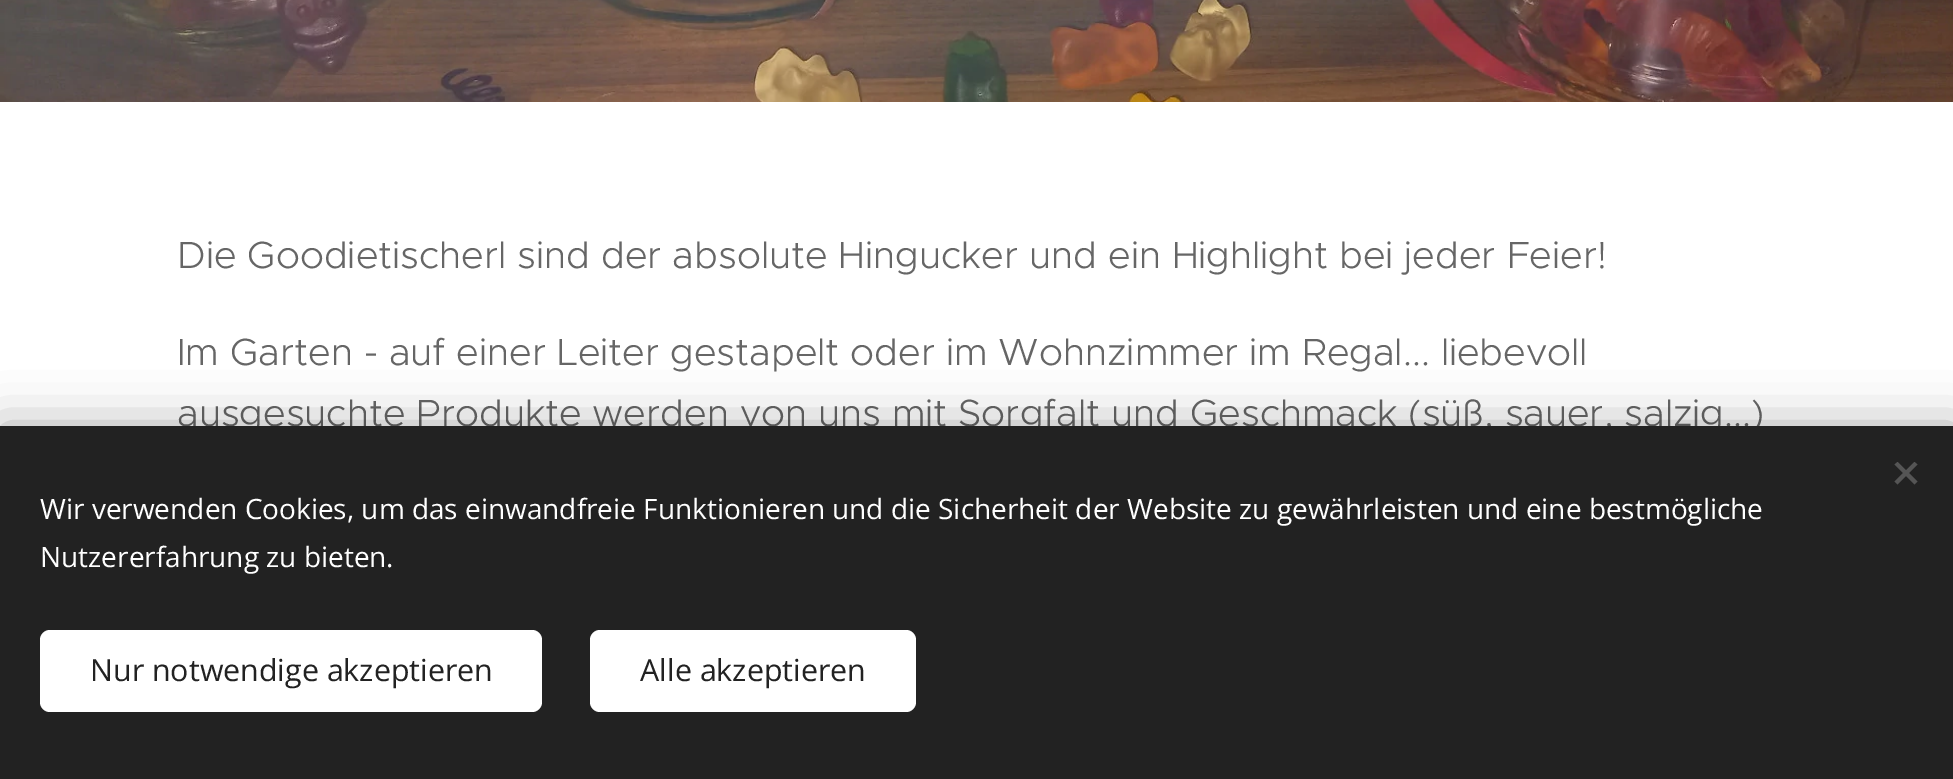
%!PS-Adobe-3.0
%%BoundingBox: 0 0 1953 779
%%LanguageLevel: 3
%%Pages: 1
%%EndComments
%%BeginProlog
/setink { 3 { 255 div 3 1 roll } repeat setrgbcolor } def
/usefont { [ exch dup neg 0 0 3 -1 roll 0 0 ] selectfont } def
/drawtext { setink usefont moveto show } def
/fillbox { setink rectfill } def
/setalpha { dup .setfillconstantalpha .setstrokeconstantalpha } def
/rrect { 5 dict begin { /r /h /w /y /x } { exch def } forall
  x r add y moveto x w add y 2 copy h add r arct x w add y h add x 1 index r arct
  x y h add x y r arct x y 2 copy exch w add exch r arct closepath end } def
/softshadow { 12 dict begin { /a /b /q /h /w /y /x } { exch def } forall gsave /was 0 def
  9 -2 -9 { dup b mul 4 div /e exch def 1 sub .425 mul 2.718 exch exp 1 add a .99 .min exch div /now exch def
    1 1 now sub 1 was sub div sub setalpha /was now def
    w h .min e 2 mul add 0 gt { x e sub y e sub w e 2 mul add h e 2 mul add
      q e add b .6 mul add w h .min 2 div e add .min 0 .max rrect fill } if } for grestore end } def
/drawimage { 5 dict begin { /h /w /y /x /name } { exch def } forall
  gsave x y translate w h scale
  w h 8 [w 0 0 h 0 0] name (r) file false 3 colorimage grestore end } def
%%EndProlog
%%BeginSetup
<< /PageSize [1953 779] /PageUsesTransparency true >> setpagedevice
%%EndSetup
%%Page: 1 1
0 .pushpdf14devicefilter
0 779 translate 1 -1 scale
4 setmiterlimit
0 0 1953 779 255 255 255 fillbox
(assets/img1.rgb) 0 0 1953 102 drawimage
(Die Goodietischerl sind der absolute Hingucker und ein Highlight bei jeder Feier!) 177 268 /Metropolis-Light 38 102 102 102 drawtext
(Im Garten - auf einer Leiter gestapelt oder im Wohnzimmer im Regal... liebevoll) 177 365 /Metropolis-Light 38 102 102 102 drawtext
(ausgesuchte Produkte werden von uns mit Sorgfalt und Geschmack \(süß, sauer, salzig...\)) 177 426 /Metropolis-Light 38 102 102 102 drawtext
0 0 0 setink
0 426 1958 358 0 25 0.33 softshadow
0 426 1953 353 34 34 34 fillbox
85 85 85 setink
1894.5 481.5 moveto 1914.5 462 lineto 1917.5 464.5 lineto 1897.5 484.5 lineto closepath fill
1897.5 462 moveto 1917.5 481.5 lineto 1914.5 484.5 lineto 1894.5 464.5 lineto closepath fill
(Wir verwenden Cookies, um das einwandfreie Funktionieren und die Sicherheit der Website zu gewährleisten und eine bestmögliche) 40 519 /OpenSans-Regular 28 255 255 255 drawtext
(Nutzererfahrung zu bieten.) 40 567 /OpenSans-Regular 28 255 255 255 drawtext
40 630 502 82 10 rrect fill
(Nur notwendige akzeptieren) 90 681 /OpenSans-Regular 30.4 34 34 34 drawtext
255 255 255 setink
590 630 326 82 10 rrect fill
(Alle akzeptieren) 640 681 /OpenSans-Regular 30.4 34 34 34 drawtext
.poppdf14devicefilter showpage
%%EOF
